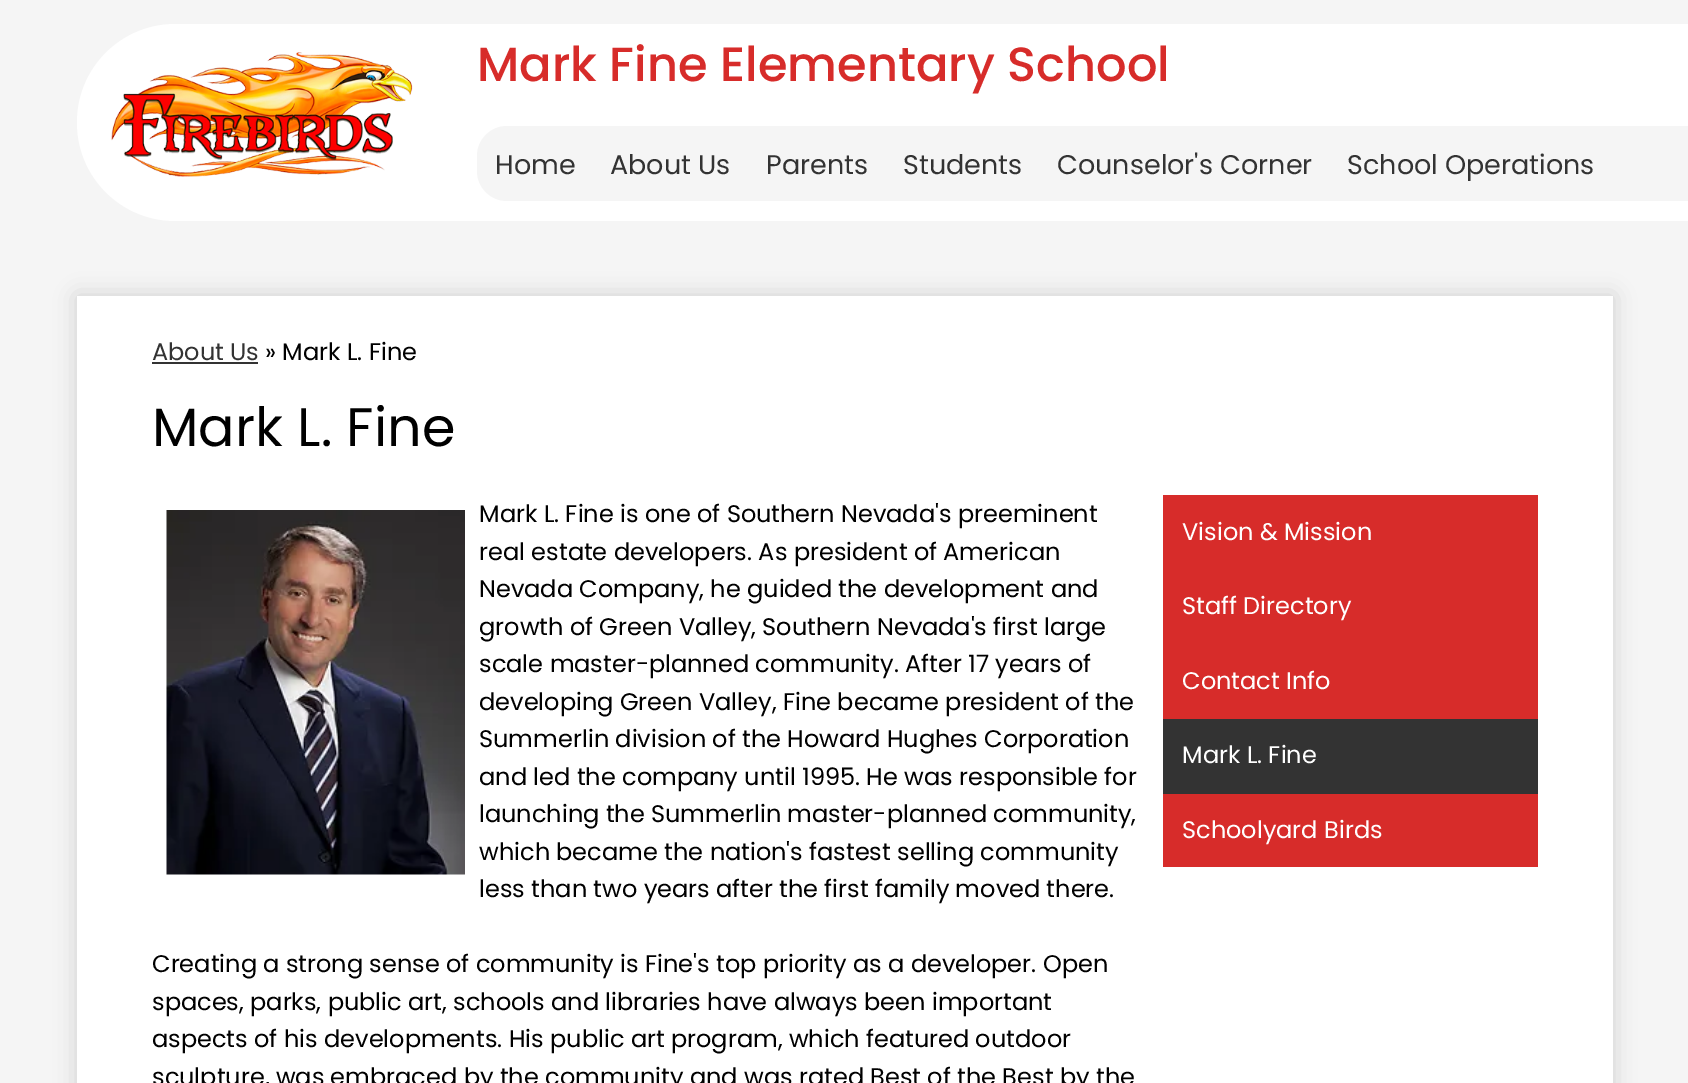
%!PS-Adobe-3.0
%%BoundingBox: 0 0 1688 1083
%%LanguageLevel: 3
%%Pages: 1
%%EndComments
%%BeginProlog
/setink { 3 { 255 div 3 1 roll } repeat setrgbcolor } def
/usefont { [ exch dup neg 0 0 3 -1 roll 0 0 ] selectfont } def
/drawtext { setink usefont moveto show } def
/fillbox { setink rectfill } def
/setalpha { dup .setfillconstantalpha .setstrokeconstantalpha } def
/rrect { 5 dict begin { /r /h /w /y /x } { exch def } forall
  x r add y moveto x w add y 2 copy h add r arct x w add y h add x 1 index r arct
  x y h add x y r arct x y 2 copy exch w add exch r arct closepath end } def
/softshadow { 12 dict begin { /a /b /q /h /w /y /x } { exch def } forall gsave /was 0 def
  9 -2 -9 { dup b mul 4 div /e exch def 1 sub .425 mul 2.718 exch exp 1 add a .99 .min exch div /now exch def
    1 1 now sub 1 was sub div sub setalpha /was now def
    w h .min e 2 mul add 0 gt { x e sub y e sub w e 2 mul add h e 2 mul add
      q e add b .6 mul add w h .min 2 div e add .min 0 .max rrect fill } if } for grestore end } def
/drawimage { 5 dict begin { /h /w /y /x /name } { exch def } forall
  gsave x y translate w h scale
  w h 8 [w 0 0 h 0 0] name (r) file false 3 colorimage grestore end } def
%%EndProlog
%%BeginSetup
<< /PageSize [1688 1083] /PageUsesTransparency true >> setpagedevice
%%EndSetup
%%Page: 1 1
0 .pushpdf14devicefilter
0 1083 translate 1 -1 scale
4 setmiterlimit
0 0 1688 1083 245 245 245 fillbox
255 255 255 setink
175.5 24 moveto 1613 24 lineto 1613 221 lineto 175.5 221 lineto 121 221 77 177 77 122.5 curveto 77 68 121 24 175.5 24 curveto closepath fill
(assets/img1.rgb) 111 52 302 125 drawimage
(Mark Fine Elementary School) 477 81 /Poppins-Medium 48 215 44 42 drawtext
245 245 245 setink
507 126 moveto 1613 126 lineto 1613 201 lineto 507 201 lineto 490.5 201 477 187.5 477 171 curveto 477 156 lineto 477 139.5 490.5 126 507 126 curveto closepath fill
(Home) 495 174 /Poppins-Regular 27 51 51 51 drawtext
(About Us) 610 174 /Poppins-Regular 27 51 51 51 drawtext
(Parents) 766 174 /Poppins-Regular 27 51 51 51 drawtext
(Students) 903 174 /Poppins-Regular 27 51 51 51 drawtext
(Counselor's Corner) 1057 174 /Poppins-Regular 27 51 51 51 drawtext
(School Operations) 1347 174 /Poppins-Regular 27 51 51 51 drawtext
1613 201 75 20 255 255 255 fillbox
1613 24 75 102 255 255 255 fillbox
0 0 0 setink
77 296 1536 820 0 11 0.15 softshadow
77 296 1536 787 255 255 255 fillbox
(About Us) 152 360 /Poppins-Regular 24 51 51 51 drawtext
152 362 106 2 51 51 51 fillbox
(» Mark L. Fine) 265 360 /Poppins-Regular 24 0 0 0 drawtext
(Mark L. Fine) 152 446 /Poppins-Regular 54 0 0 0 drawtext
(assets/img2.rgb) 166 510 299 365 drawimage
(Mark L. Fine is one of Southern Nevada's preeminent) 479 522 /Poppins-Regular 24 0 0 0 drawtext
(real estate developers. As president of American) 479 560 /Poppins-Regular 24 0 0 0 drawtext
(Nevada Company, he guided the development and) 479 597 /Poppins-Regular 24 0 0 0 drawtext
(growth of Green Valley, Southern Nevada's first large) 479 635 /Poppins-Regular 24 0 0 0 drawtext
(scale master-planned community. After 17 years of) 479 672 /Poppins-Regular 24 0 0 0 drawtext
(developing Green Valley, Fine became president of the) 479 710 /Poppins-Regular 24 0 0 0 drawtext
(Summerlin division of the Howard Hughes Corporation) 479 747 /Poppins-Regular 24 0 0 0 drawtext
(and led the company until 1995. He was responsible for) 479 785 /Poppins-Regular 24 0 0 0 drawtext
(launching the Summerlin master-planned community,) 479 822 /Poppins-Regular 24 0 0 0 drawtext
(which became the nation's fastest selling community) 479 860 /Poppins-Regular 24 0 0 0 drawtext
(less than two years after the first family moved there.) 479 897 /Poppins-Regular 24 0 0 0 drawtext
(Creating a strong sense of community is Fine's top priority as a developer. Open) 152 972 /Poppins-Regular 24 0 0 0 drawtext
(spaces, parks, public art, schools and libraries have always been important) 152 1010 /Poppins-Regular 24 0 0 0 drawtext
(aspects of his developments. His public art program, which featured outdoor) 152 1047 /Poppins-Regular 24 0 0 0 drawtext
(sculpture, was embraced by the community and was rated Best of the Best by the) 152 1085 /Poppins-Regular 24 0 0 0 drawtext
1163 495 375 372 215 44 42 fillbox
(Vision & Mission) 1182 540 /Poppins-Regular 24 255 255 255 drawtext
(Staff Directory) 1182 614 /Poppins-Regular 24 255 255 255 drawtext
(Contact Info) 1182 689 /Poppins-Regular 24 255 255 255 drawtext
1163 719 375 75 51 51 51 fillbox
(Mark L. Fine) 1182 763 /Poppins-Regular 24 255 255 255 drawtext
(Schoolyard Birds) 1182 838 /Poppins-Regular 24 255 255 255 drawtext
.poppdf14devicefilter showpage
%%EOF
